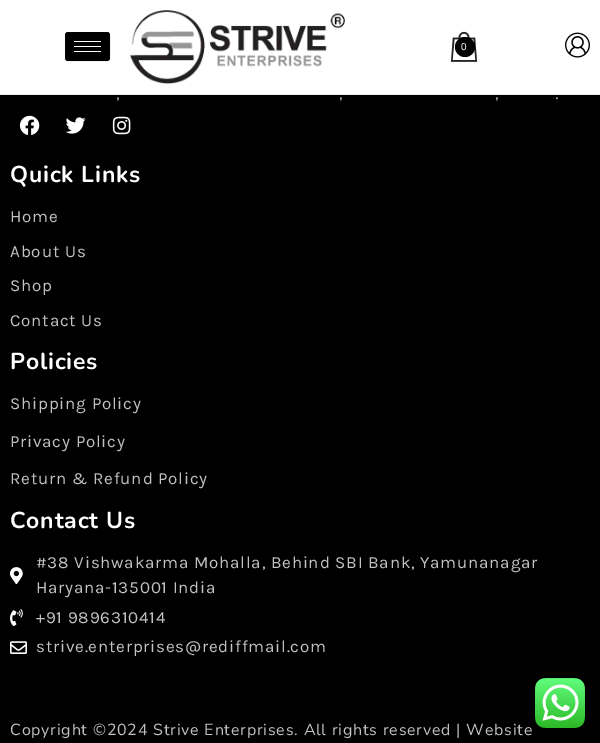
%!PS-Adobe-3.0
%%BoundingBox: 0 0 600 743
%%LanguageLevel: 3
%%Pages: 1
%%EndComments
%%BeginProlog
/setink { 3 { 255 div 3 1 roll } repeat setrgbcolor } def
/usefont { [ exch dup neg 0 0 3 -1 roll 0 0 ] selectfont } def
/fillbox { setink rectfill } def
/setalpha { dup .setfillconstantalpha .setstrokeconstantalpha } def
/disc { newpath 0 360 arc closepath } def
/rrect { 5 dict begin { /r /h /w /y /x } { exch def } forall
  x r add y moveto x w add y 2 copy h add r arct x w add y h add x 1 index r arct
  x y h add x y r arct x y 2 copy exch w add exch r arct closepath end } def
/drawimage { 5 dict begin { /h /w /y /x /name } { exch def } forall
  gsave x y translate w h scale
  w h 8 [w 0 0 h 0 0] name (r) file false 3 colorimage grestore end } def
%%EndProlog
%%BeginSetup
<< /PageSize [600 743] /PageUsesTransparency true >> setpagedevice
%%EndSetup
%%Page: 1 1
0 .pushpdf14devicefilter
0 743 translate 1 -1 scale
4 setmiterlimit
0 0 600 743 0 0 0 fillbox
0 0 600 94 255 255 255 fillbox
0 94 600 1 235 235 235 fillbox
0 0 0 setink
65 32 45 29 3 rrect fill
0.2 setalpha
65.5 32.5 44 28 2.5 rrect stroke
1 setalpha
74 41 27 1 255 255 255 fillbox
74 46 27 1 255 255 255 fillbox
74 51 27 1 255 255 255 fillbox
(assets/img1.rgb) 130 10 215 74 drawimage
(assets/img2.rgb) 450 31 28 31 drawimage
0 0 0 setink
465 47 10 disc fill
/LiberationSans-Regular 10 usefont
255 255 255 setink
461 50 moveto 0.8 0 (0) ashow
(assets/img3.rgb) 565 32 25 26 drawimage
/Nunito-Regular 17 usefont
194 194 194 setink
116 99 moveto 0.8 0 (,) ashow
339 99 moveto 0.8 0 (,) ashow
495 99 moveto 0.8 0 (,) ashow
555 99 moveto 0.8 0 (.) ashow
(assets/img4.rgb) 19 115 21 20 drawimage
(assets/img5.rgb) 65 117 21 17 drawimage
(assets/img6.rgb) 112 116 19 19 drawimage
/Nunito-Bold 23 usefont
255 255 255 setink
10 182 moveto 0.8 0 (Quick Links) ashow
/Karla-Regular 17 usefont
194 194 194 setink
10 222 moveto 0.8 0 (Home) ashow
10 257 moveto 0.8 0 (About Us) ashow
10 291 moveto 0.8 0 (Shop) ashow
10 326 moveto 0.8 0 (Contact Us) ashow
/Nunito-Bold 23 usefont
255 255 255 setink
10 369 moveto 0.8 0 (Policies) ashow
/Karla-Regular 17 usefont
194 194 194 setink
10 409 moveto 0.8 0 (Shipping Policy) ashow
10 447 moveto 0.8 0 (Privacy Policy) ashow
10 484 moveto 0.8 0 (Return & Refund Policy) ashow
/Nunito-Bold 23 usefont
255 255 255 setink
10 528 moveto 0.8 0 (Contact Us) ashow
(assets/img7.rgb) 10 567 13 18 drawimage
/Karla-Regular 17 usefont
194 194 194 setink
36 568 moveto 0.8 0 (#38 Vishwakarma Mohalla, Behind SBI Bank, Yamunanagar) ashow
36 593 moveto 0.8 0 (Haryana-135001 India) ashow
(assets/img8.rgb) 10 609 13 18 drawimage
36 623 moveto 0.8 0 (+91 9896310414) ashow
(assets/img9.rgb) 10 641 17 13 drawimage
36 652 moveto 0.8 0 (strive.enterprises@rediffmail.com) ashow
/Nunito-Regular 16 usefont
10 735 moveto 0.8 0 (Copyright ©2024 Strive Enterprises. All rights reserved | Website) ashow
(assets/img10.rgb) 535 678 50 50 drawimage
.poppdf14devicefilter showpage
%%EOF
